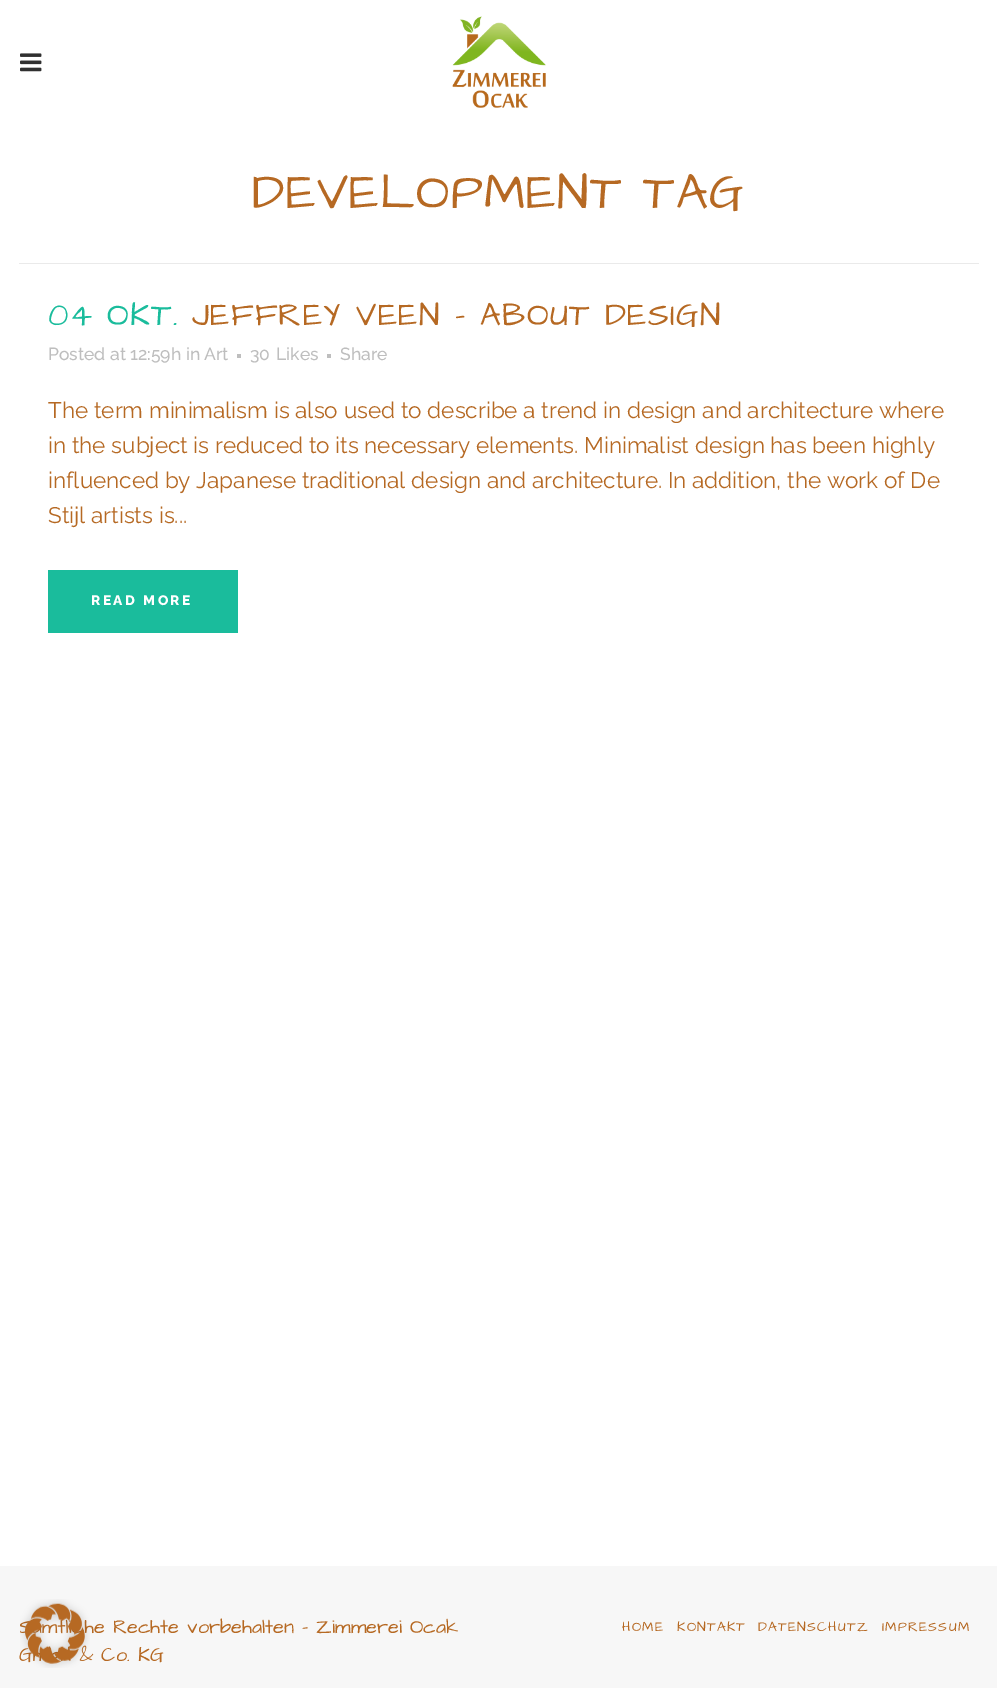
%!PS-Adobe-3.0
%%BoundingBox: 0 0 997 1688
%%LanguageLevel: 3
%%Pages: 1
%%EndComments
%%BeginProlog
/setink { 3 { 255 div 3 1 roll } repeat setrgbcolor } def
/usefont { [ exch dup neg 0 0 3 -1 roll 0 0 ] selectfont } def
/drawtext { setink usefont moveto show } def
/fillbox { setink rectfill } def
/drawimage { 5 dict begin { /h /w /y /x /name } { exch def } forall
  gsave x y translate w h scale
  w h 8 [w 0 0 h 0 0] name (r) file false 3 colorimage grestore end } def
%%EndProlog
%%BeginSetup
<< /PageSize [997 1688] >> setpagedevice
%%EndSetup
%%Page: 1 1
0 1688 translate 1 -1 scale
4 setmiterlimit
0 0 997 1688 255 255 255 fillbox
(assets/img1.rgb) 20 53 22 19 drawimage
(assets/img2.rgb) 452 16 94 92 drawimage
/ArchitectsDaughter-Regular 50 usefont
182 105 35 setink
252 208 moveto 1.25 0 (DEVELOPMENT TAG) ashow
19 263 960 1 234 234 234 fillbox
/ArchitectsDaughter-Regular 32.5 usefont
26 188 156 setink
48 325 moveto 1.25 0 (04 OKT.) ashow
182 105 35 setink
192 325 moveto 1.25 0 (JEFFREY VEEN – ABOUT DESIGN) ashow
(Posted at 12:59h in Art) 48 360 /Raleway-Medium 17.5 190 190 190 drawtext
237 354 4 4 190 190 190 fillbox
(30) 250 360 /Raleway-Medium 17.5 190 190 190 drawtext
(Likes) 276 360 /Raleway-Medium 17.5 190 190 190 drawtext
327 354 4 4 190 190 190 fillbox
(Share) 340 360 /Raleway-Medium 17.5 190 190 190 drawtext
(The term minimalism is also used to describe a trend in design and architecture where) 48 418 /Raleway-Regular 22.5 182 105 35 drawtext
(in the subject is reduced to its necessary elements. Minimalist design has been highly) 48 453 /Raleway-Regular 22.5 182 105 35 drawtext
(influenced by Japanese traditional design and architecture. In addition, the work of De) 48 488 /Raleway-Regular 22.5 182 105 35 drawtext
(Stijl artists is...) 48 523 /Raleway-Regular 22.5 182 105 35 drawtext
48 570 190 63 26 188 156 fillbox
/Raleway-ExtraBold 13.75 usefont
255 255 255 setink
91 605 moveto 2.5 0 (READ MORE) ashow
0 1566 997 122 247 247 247 fillbox
(mtl) 42 1633 /ArchitectsDaughter-Regular 20 182 105 35 drawtext
(he Rechte vorbehalten - Zimmerei Ocak) 84 1633 /ArchitectsDaughter-Regular 20 182 105 35 drawtext
(G) 19 1661 /ArchitectsDaughter-Regular 20 182 105 35 drawtext
(& Co. KG) 80 1661 /ArchitectsDaughter-Regular 20 182 105 35 drawtext
/ArchitectsDaughter-Regular 13.75 usefont
622 1631 moveto 1.25 0 (HOME) ashow
677 1631 moveto 1.25 0 (KONTAKT) ashow
758 1631 moveto 1.25 0 (DATENSCHUTZ) ashow
882 1631 moveto 1.25 0 (IMPRESSUM) ashow
(assets/img3.rgb) 20 1599 70 69 drawimage
showpage
%%EOF
